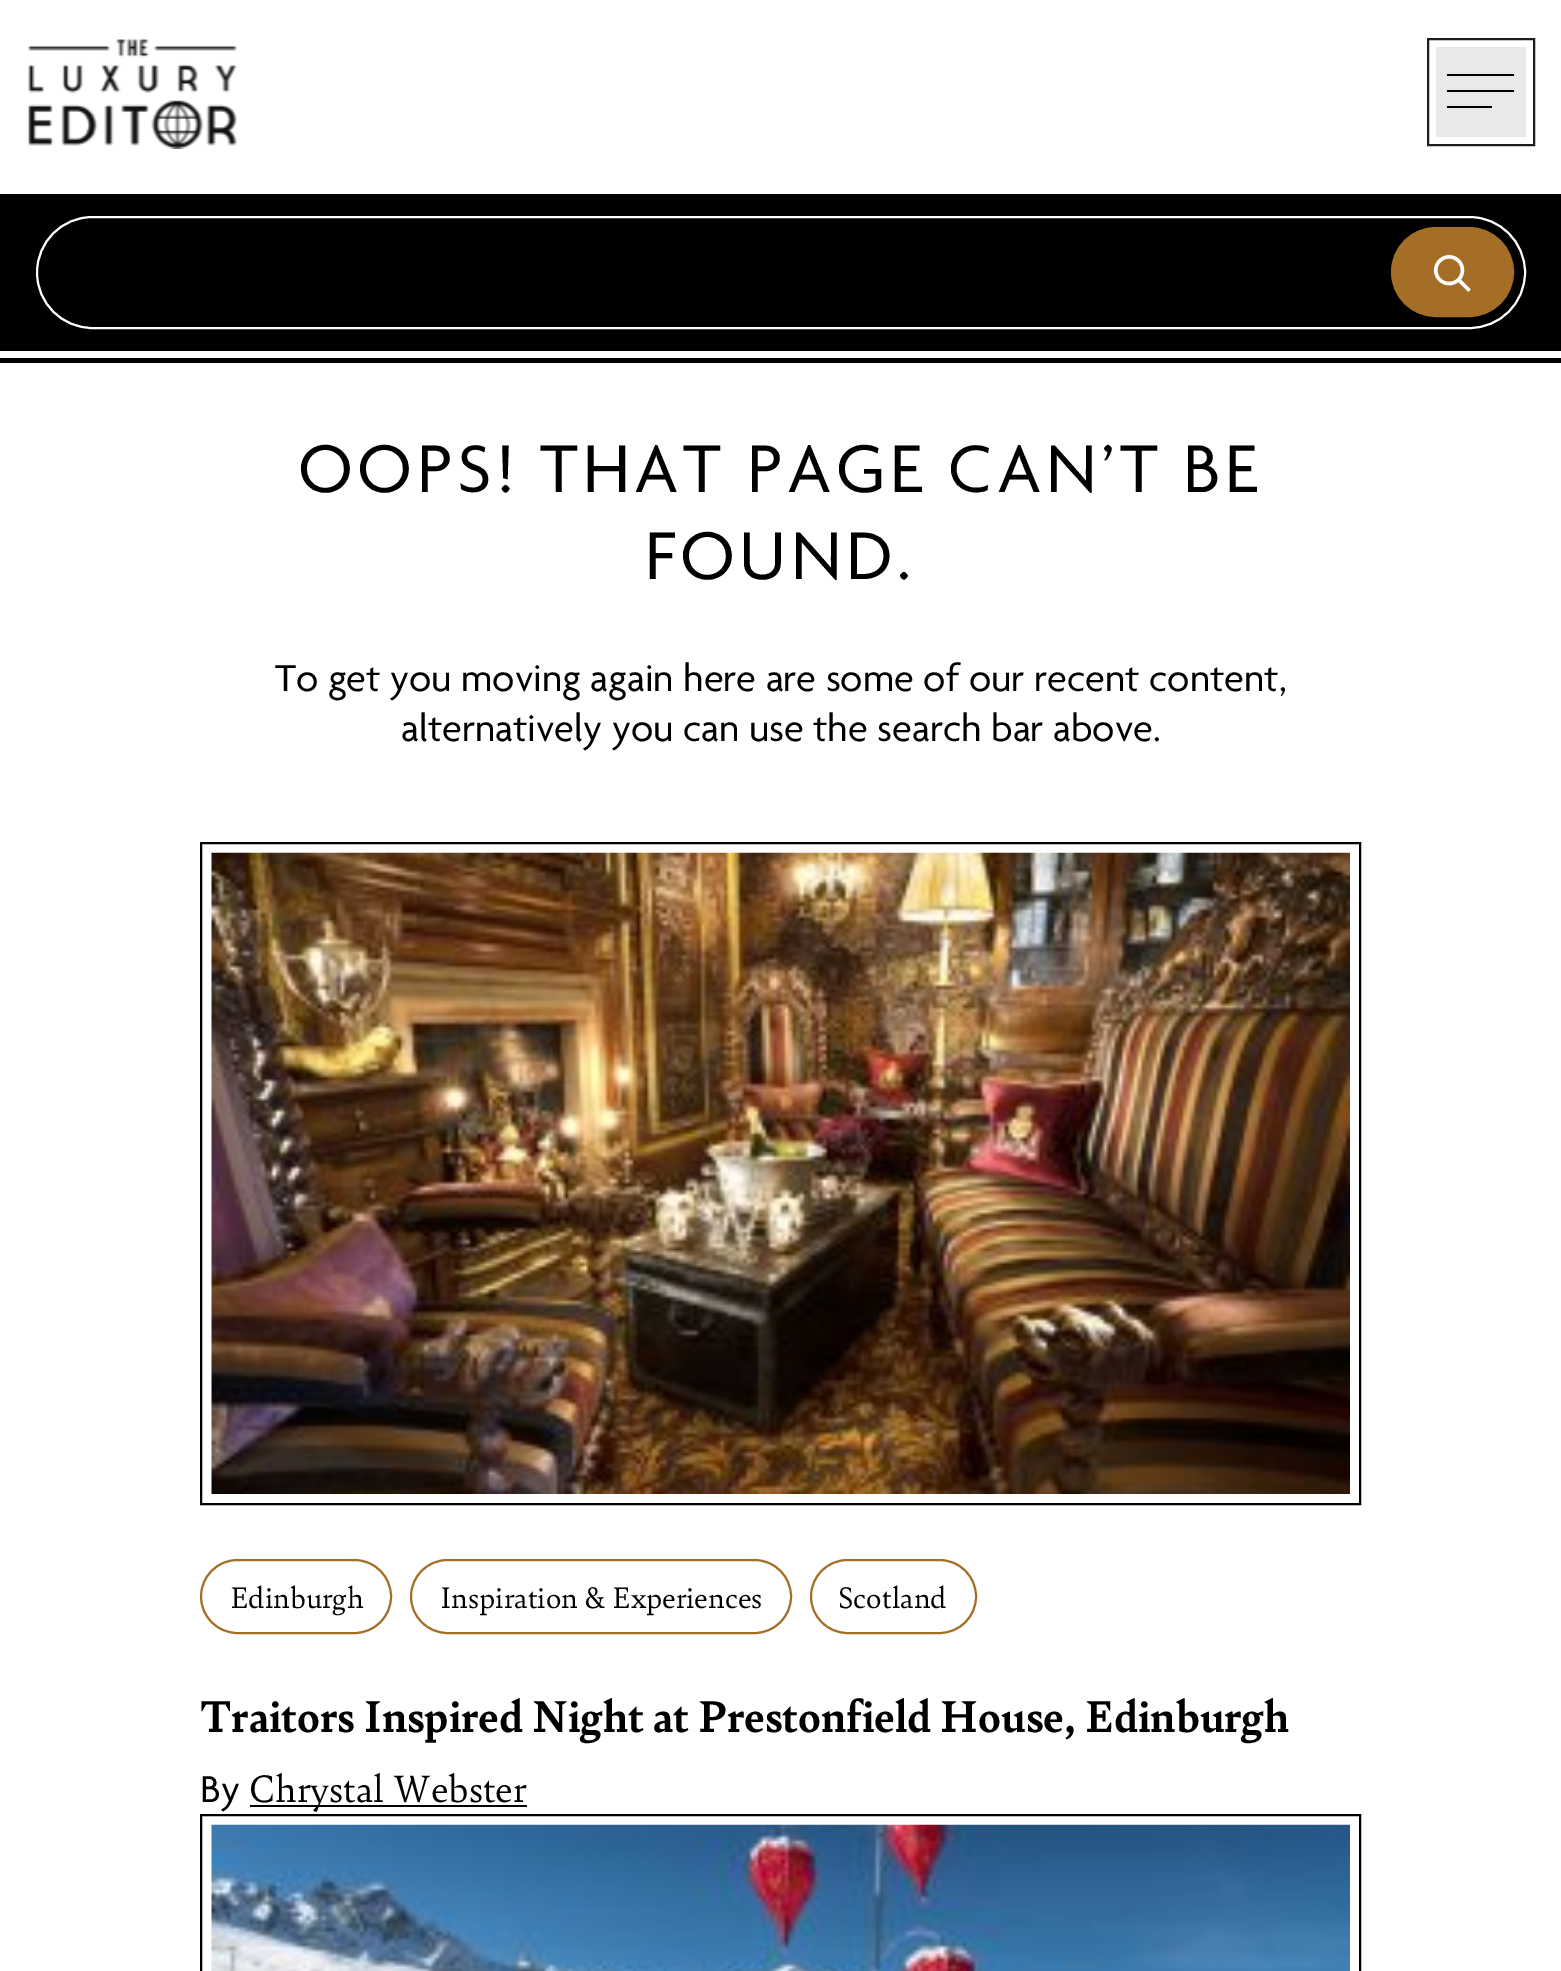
%!PS-Adobe-3.0
%%BoundingBox: 0 0 1561 1971
%%LanguageLevel: 3
%%Pages: 1
%%EndComments
%%BeginProlog
/setink { 3 { 255 div 3 1 roll } repeat setrgbcolor } def
/usefont { [ exch dup neg 0 0 3 -1 roll 0 0 ] selectfont } def
/drawtext { setink usefont moveto show } def
/fillbox { setink rectfill } def
/rrect { 5 dict begin { /r /h /w /y /x } { exch def } forall
  x r add y moveto x w add y 2 copy h add r arct x w add y h add x 1 index r arct
  x y h add x y r arct x y 2 copy exch w add exch r arct closepath end } def
/drawimage { 5 dict begin { /h /w /y /x /name } { exch def } forall
  gsave x y translate w h scale
  w h 8 [w 0 0 h 0 0] name (r) file false 3 colorimage grestore end } def
%%EndProlog
%%BeginSetup
<< /PageSize [1561 1971] >> setpagedevice
%%EndSetup
%%Page: 1 1
0 1971 translate 1 -1 scale
4 setmiterlimit
0 0 1561 1971 255 255 255 fillbox
(assets/img1.rgb) 28 39 209 110 drawimage
26 30 32 setink
2 setlinewidth
1428 39 106 106 rectstroke
1436 47 90 90 232 233 233 fillbox
1447 74 67 2 0 0 0 fillbox
1447 90 67 2 0 0 0 fillbox
1447 106 45 2 0 0 0 fillbox
0 194 1561 157 0 0 0 fillbox
255 255 255 setink
37 217 1488 111 55.5 rrect stroke
165 110 38 setink
1392 228 121 88 44 rrect gsave fill grestore
stroke
(assets/img2.rgb) 1433 255 38 37 drawimage
0 358 1561 5 0 0 0 fillbox
/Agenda-Regular 72.9 usefont
298 492 moveto 4.5 0 (OOPS! THAT PAGE CAN’T BE) ashow
645 579 moveto 4.5 0 (FOUND.) ashow
(To get you moving again here are some of our recent content,) 275 691 /Agenda-Regular 40.5 0 0 0 drawtext
(alternatively you can use the search bar above.) 401 741 /Agenda-Regular 40.5 0 0 0 drawtext
201 843 1159 661 rectstroke
(assets/img3.rgb) 211 852 1139 642 drawimage
165 110 38 setink
201 1560 190 73 36.5 rrect stroke
(Edinburgh) 230 1608 /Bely-Regular 31.5 0 0 0 drawtext
165 110 38 setink
411 1560 380 73 36.5 rrect stroke
(Inspiration & Experiences) 440 1608 /Bely-Regular 31.5 0 0 0 drawtext
165 110 38 setink
811 1560 165 73 36.5 rrect stroke
(Scotland) 838 1608 /Bely-Regular 31.5 0 0 0 drawtext
(Traitors Inspired Night at Prestonfield House, Edinburgh) 200 1732 /Bely-Bold 47.25 0 0 0 drawtext
(By) 200 1802 /Agenda-Regular 40.5 0 0 0 drawtext
250 1805 277 2 0 0 0 fillbox
(Chrystal Webster) 249 1802 /Bely-Regular 40.5 0 0 0 drawtext
201 1815 1159 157 rectstroke
(assets/img4.rgb) 211 1824 1139 147 drawimage
showpage
%%EOF
